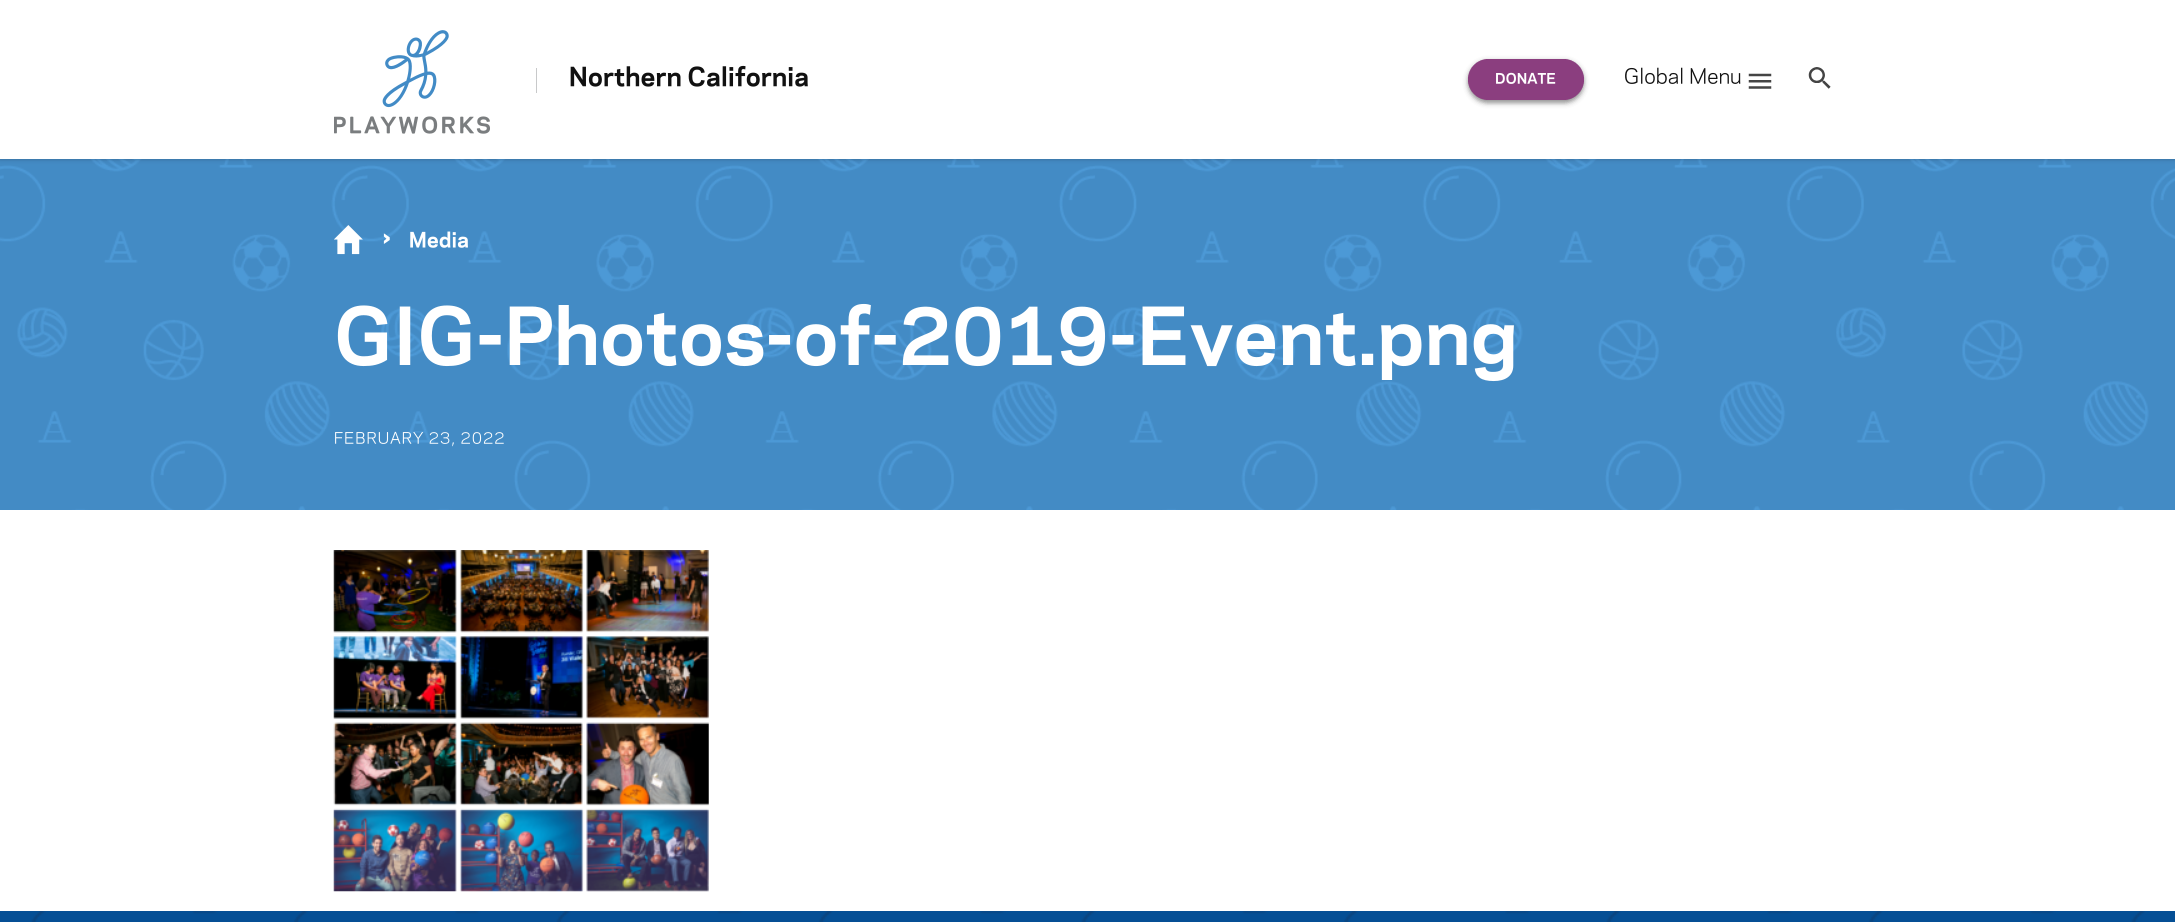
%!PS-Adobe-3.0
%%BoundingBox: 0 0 2175 922
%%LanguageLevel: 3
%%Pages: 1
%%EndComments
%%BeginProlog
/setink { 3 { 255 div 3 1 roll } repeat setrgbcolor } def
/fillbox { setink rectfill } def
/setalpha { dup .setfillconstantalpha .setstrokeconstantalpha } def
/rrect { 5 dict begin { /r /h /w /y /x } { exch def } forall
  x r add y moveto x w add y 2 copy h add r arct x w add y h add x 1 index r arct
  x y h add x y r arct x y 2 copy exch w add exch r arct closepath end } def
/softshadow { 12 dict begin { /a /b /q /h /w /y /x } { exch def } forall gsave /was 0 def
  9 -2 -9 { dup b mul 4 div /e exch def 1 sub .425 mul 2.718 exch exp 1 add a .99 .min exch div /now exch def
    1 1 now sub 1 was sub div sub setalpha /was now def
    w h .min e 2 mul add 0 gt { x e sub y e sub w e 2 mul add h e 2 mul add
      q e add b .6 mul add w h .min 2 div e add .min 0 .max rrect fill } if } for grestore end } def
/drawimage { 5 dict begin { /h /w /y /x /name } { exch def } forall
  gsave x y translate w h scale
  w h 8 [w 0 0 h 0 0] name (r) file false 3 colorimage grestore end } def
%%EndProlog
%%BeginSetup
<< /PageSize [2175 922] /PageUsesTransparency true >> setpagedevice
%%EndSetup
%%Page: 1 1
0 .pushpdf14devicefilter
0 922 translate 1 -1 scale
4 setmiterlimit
0 0 2175 922 255 255 255 fillbox
0 159 2175 351 67 139 197 fillbox
(assets/img7.rgb) 0 159 2175 351 drawimage
17 17 17 setink
0 0 2175 159 0 2.5 0.3 softshadow
0 0 2175 159 255 255 255 fillbox
(assets/img1.rgb) 334 30 156 104 drawimage
536 68 1 25 200 201 202 fillbox
(assets/img2.rgb) 570 65 238 22 drawimage
0 0 0 setink
1468 61 116 42 21 2.5 0.42 softshadow
139 62 127 setink
1468 59 116 41 20.5 rrect fill
(assets/img3.rgb) 1496 72 60 12 drawimage
(assets/img4.rgb) 1625 67 116 17 drawimage
(assets/img5.rgb) 1748 73 24 16 drawimage
(assets/img6.rgb) 1808 67 23 22 drawimage
(assets/img8.rgb) 334 225 29 30 drawimage
(assets/img9.rgb) 383 233 7 11 drawimage
(assets/img10.rgb) 410 231 58 17 drawimage
(assets/img11.rgb) 337 303 1177 79 drawimage
(assets/img12.rgb) 335 431 169 16 drawimage
(assets/img13.rgb) 333 550 376 342 drawimage
0 911 2175 11 5 79 149 fillbox
(assets/img14.rgb) 31 911 2114 11 drawimage
.poppdf14devicefilter showpage
%%EOF
